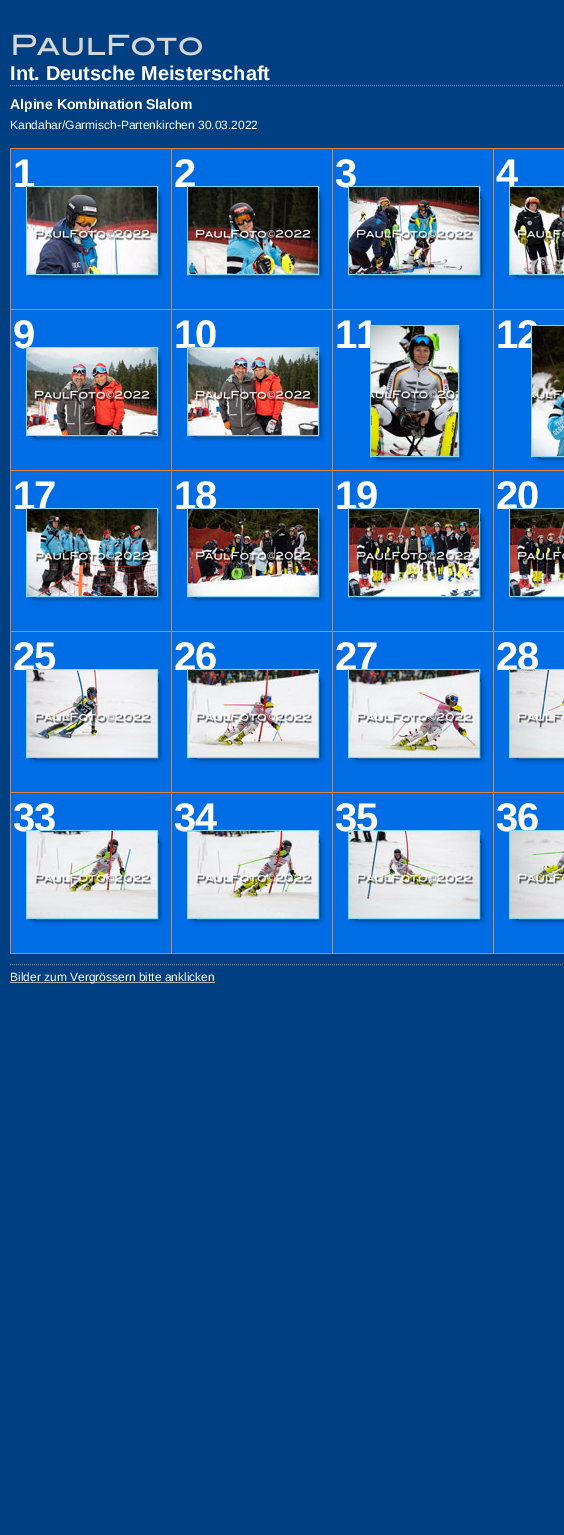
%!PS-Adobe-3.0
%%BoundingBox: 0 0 564 1535
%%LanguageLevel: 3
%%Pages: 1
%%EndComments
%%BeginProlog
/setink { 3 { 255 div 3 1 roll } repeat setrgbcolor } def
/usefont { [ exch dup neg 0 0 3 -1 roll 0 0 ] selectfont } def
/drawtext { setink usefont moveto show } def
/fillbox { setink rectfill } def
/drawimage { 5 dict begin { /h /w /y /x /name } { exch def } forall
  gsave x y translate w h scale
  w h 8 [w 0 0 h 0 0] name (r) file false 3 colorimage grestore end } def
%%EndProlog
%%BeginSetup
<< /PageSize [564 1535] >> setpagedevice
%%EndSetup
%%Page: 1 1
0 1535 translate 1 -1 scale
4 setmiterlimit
0 0 564 1535 0 63 129 fillbox
(assets/img1.rgb) 13 34 189 22 drawimage
127 127 127 setink
[1 1] 0 setdash
10 85.5 moveto 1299 85.5 lineto stroke
(Int. Deutsche Meisterschaft) 10 80 /LiberationSans-Bold 20 255 255 255 drawtext
(Alpine Kombination Slalom) 10 109 /LiberationSans-Bold 14 255 255 255 drawtext
(Kandahar/Garmisch-Partenkirchen 30.03.2022) 10 129 /LiberationSans-Regular 12 255 255 255 drawtext
127 127 127 setink
10 964.5 moveto 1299 964.5 lineto stroke
11 149 160 160 0 109 229 fillbox
10 148 554 1 222 132 64 fillbox
10 148 1 161 222 132 64 fillbox
/LiberationSans-Bold 40 usefont
255 255 255 setink
13 187 moveto -1 0 (1) ashow
(assets/img2.rgb) 36 199 128 82 drawimage
127 218 249 setink
[] 0 setdash
26.5 186.5 131 88 rectstroke
(assets/img3.rgb) 27 187 130 87 drawimage
(assets/img4.rgb) 158 191 5 8 drawimage
(assets/img5.rgb) 28 275 8 5 drawimage
172 149 160 160 0 109 229 fillbox
171 148 1 161 222 132 64 fillbox
255 255 255 setink
174 187 moveto -1 0 (2) ashow
(assets/img2.rgb) 197 199 128 82 drawimage
127 218 249 setink
187.5 186.5 131 88 rectstroke
(assets/img6.rgb) 188 187 130 87 drawimage
(assets/img4.rgb) 319 191 5 8 drawimage
(assets/img5.rgb) 189 275 8 5 drawimage
333 149 160 160 0 109 229 fillbox
332 148 1 161 222 132 64 fillbox
255 255 255 setink
335 187 moveto -1 0 (3) ashow
(assets/img2.rgb) 358 199 128 82 drawimage
127 218 249 setink
348.5 186.5 131 88 rectstroke
(assets/img7.rgb) 349 187 130 87 drawimage
(assets/img4.rgb) 480 191 5 8 drawimage
(assets/img5.rgb) 350 275 8 5 drawimage
494 149 70 160 0 109 229 fillbox
493 148 1 161 222 132 64 fillbox
255 255 255 setink
496 187 moveto -1 0 (4) ashow
(assets/img8.rgb) 519 275 45 6 drawimage
127 218 249 setink
509.5 186.5 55 88 rectstroke
(assets/img9.rgb) 510 187 54 87 drawimage
(assets/img5.rgb) 511 275 8 5 drawimage
11 310 160 160 0 109 229 fillbox
10 309 554 1 222 132 64 fillbox
10 309 1 161 222 132 64 fillbox
255 255 255 setink
13 348 moveto -1 0 (9) ashow
(assets/img2.rgb) 36 360 128 82 drawimage
127 218 249 setink
26.5 347.5 131 88 rectstroke
(assets/img10.rgb) 27 348 130 87 drawimage
(assets/img4.rgb) 158 352 5 8 drawimage
(assets/img5.rgb) 28 436 8 5 drawimage
172 310 160 160 0 109 229 fillbox
171 309 1 161 222 132 64 fillbox
255 255 255 setink
174 348 moveto -1 0 (10) ashow
(assets/img2.rgb) 197 360 128 82 drawimage
127 218 249 setink
187.5 347.5 131 88 rectstroke
(assets/img11.rgb) 188 348 130 87 drawimage
(assets/img4.rgb) 319 352 5 8 drawimage
(assets/img5.rgb) 189 436 8 5 drawimage
333 310 160 160 0 109 229 fillbox
332 309 1 161 222 132 64 fillbox
255 255 255 setink
335 348 moveto -1 0 (11) ashow
(assets/img12.rgb) 380 338 85 125 drawimage
127 218 249 setink
370.5 325.5 88 131 rectstroke
(assets/img13.rgb) 371 326 87 130 drawimage
(assets/img4.rgb) 459 330 5 8 drawimage
(assets/img5.rgb) 372 457 8 5 drawimage
494 310 70 160 0 109 229 fillbox
493 309 1 161 222 132 64 fillbox
255 255 255 setink
496 348 moveto -1 0 (12) ashow
(assets/img14.rgb) 541 457 23 6 drawimage
127 218 249 setink
531.5 325.5 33 131 rectstroke
(assets/img15.rgb) 532 326 32 130 drawimage
(assets/img5.rgb) 533 457 8 5 drawimage
11 471 160 160 0 109 229 fillbox
10 470 554 1 222 132 64 fillbox
10 470 1 161 222 132 64 fillbox
255 255 255 setink
13 509 moveto -1 0 (17) ashow
(assets/img2.rgb) 36 521 128 82 drawimage
127 218 249 setink
26.5 508.5 131 88 rectstroke
(assets/img16.rgb) 27 509 130 87 drawimage
(assets/img4.rgb) 158 513 5 8 drawimage
(assets/img5.rgb) 28 597 8 5 drawimage
172 471 160 160 0 109 229 fillbox
171 470 1 161 222 132 64 fillbox
255 255 255 setink
174 509 moveto -1 0 (18) ashow
(assets/img2.rgb) 197 521 128 82 drawimage
127 218 249 setink
187.5 508.5 131 88 rectstroke
(assets/img17.rgb) 188 509 130 87 drawimage
(assets/img4.rgb) 319 513 5 8 drawimage
(assets/img5.rgb) 189 597 8 5 drawimage
333 471 160 160 0 109 229 fillbox
332 470 1 161 222 132 64 fillbox
255 255 255 setink
335 509 moveto -1 0 (19) ashow
(assets/img2.rgb) 358 521 128 82 drawimage
127 218 249 setink
348.5 508.5 131 88 rectstroke
(assets/img18.rgb) 349 509 130 87 drawimage
(assets/img4.rgb) 480 513 5 8 drawimage
(assets/img5.rgb) 350 597 8 5 drawimage
494 471 70 160 0 109 229 fillbox
493 470 1 161 222 132 64 fillbox
255 255 255 setink
496 509 moveto -1 0 (20) ashow
(assets/img8.rgb) 519 597 45 6 drawimage
127 218 249 setink
509.5 508.5 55 88 rectstroke
(assets/img19.rgb) 510 509 54 87 drawimage
(assets/img5.rgb) 511 597 8 5 drawimage
11 632 160 160 0 109 229 fillbox
10 631 554 1 222 132 64 fillbox
10 631 1 161 222 132 64 fillbox
255 255 255 setink
13 670 moveto -1 0 (25) ashow
(assets/img2.rgb) 36 682 128 82 drawimage
127 218 249 setink
26.5 669.5 131 88 rectstroke
(assets/img20.rgb) 27 670 130 87 drawimage
(assets/img4.rgb) 158 674 5 8 drawimage
(assets/img5.rgb) 28 758 8 5 drawimage
172 632 160 160 0 109 229 fillbox
171 631 1 161 222 132 64 fillbox
255 255 255 setink
174 670 moveto -1 0 (26) ashow
(assets/img2.rgb) 197 682 128 82 drawimage
127 218 249 setink
187.5 669.5 131 88 rectstroke
(assets/img21.rgb) 188 670 130 87 drawimage
(assets/img4.rgb) 319 674 5 8 drawimage
(assets/img5.rgb) 189 758 8 5 drawimage
333 632 160 160 0 109 229 fillbox
332 631 1 161 222 132 64 fillbox
255 255 255 setink
335 670 moveto -1 0 (27) ashow
(assets/img2.rgb) 358 682 128 82 drawimage
127 218 249 setink
348.5 669.5 131 88 rectstroke
(assets/img22.rgb) 349 670 130 87 drawimage
(assets/img4.rgb) 480 674 5 8 drawimage
(assets/img5.rgb) 350 758 8 5 drawimage
494 632 70 160 0 109 229 fillbox
493 631 1 161 222 132 64 fillbox
255 255 255 setink
496 670 moveto -1 0 (28) ashow
(assets/img8.rgb) 519 758 45 6 drawimage
127 218 249 setink
509.5 669.5 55 88 rectstroke
(assets/img23.rgb) 510 670 54 87 drawimage
(assets/img5.rgb) 511 758 8 5 drawimage
11 793 160 160 0 109 229 fillbox
10 792 554 1 222 132 64 fillbox
10 953 554 1 222 132 64 fillbox
10 792 1 162 222 132 64 fillbox
255 255 255 setink
13 831 moveto -1 0 (33) ashow
(assets/img2.rgb) 36 843 128 82 drawimage
127 218 249 setink
26.5 830.5 131 88 rectstroke
(assets/img24.rgb) 27 831 130 87 drawimage
(assets/img4.rgb) 158 835 5 8 drawimage
(assets/img5.rgb) 28 919 8 5 drawimage
172 793 160 160 0 109 229 fillbox
171 792 1 162 222 132 64 fillbox
255 255 255 setink
174 831 moveto -1 0 (34) ashow
(assets/img2.rgb) 197 843 128 82 drawimage
127 218 249 setink
187.5 830.5 131 88 rectstroke
(assets/img25.rgb) 188 831 130 87 drawimage
(assets/img4.rgb) 319 835 5 8 drawimage
(assets/img5.rgb) 189 919 8 5 drawimage
333 793 160 160 0 109 229 fillbox
332 792 1 162 222 132 64 fillbox
255 255 255 setink
335 831 moveto -1 0 (35) ashow
(assets/img2.rgb) 358 843 128 82 drawimage
127 218 249 setink
348.5 830.5 131 88 rectstroke
(assets/img26.rgb) 349 831 130 87 drawimage
(assets/img4.rgb) 480 835 5 8 drawimage
(assets/img5.rgb) 350 919 8 5 drawimage
494 793 70 160 0 109 229 fillbox
493 792 1 162 222 132 64 fillbox
255 255 255 setink
496 831 moveto -1 0 (36) ashow
(assets/img8.rgb) 519 919 45 6 drawimage
127 218 249 setink
509.5 830.5 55 88 rectstroke
(assets/img27.rgb) 510 831 54 87 drawimage
(assets/img5.rgb) 511 919 8 5 drawimage
10 982 205 1 179 179 179 fillbox
(Bilder zum Vergrössern bitte anklicken) 10 981 /LiberationSans-Regular 12 255 255 255 drawtext
showpage
%%EOF
